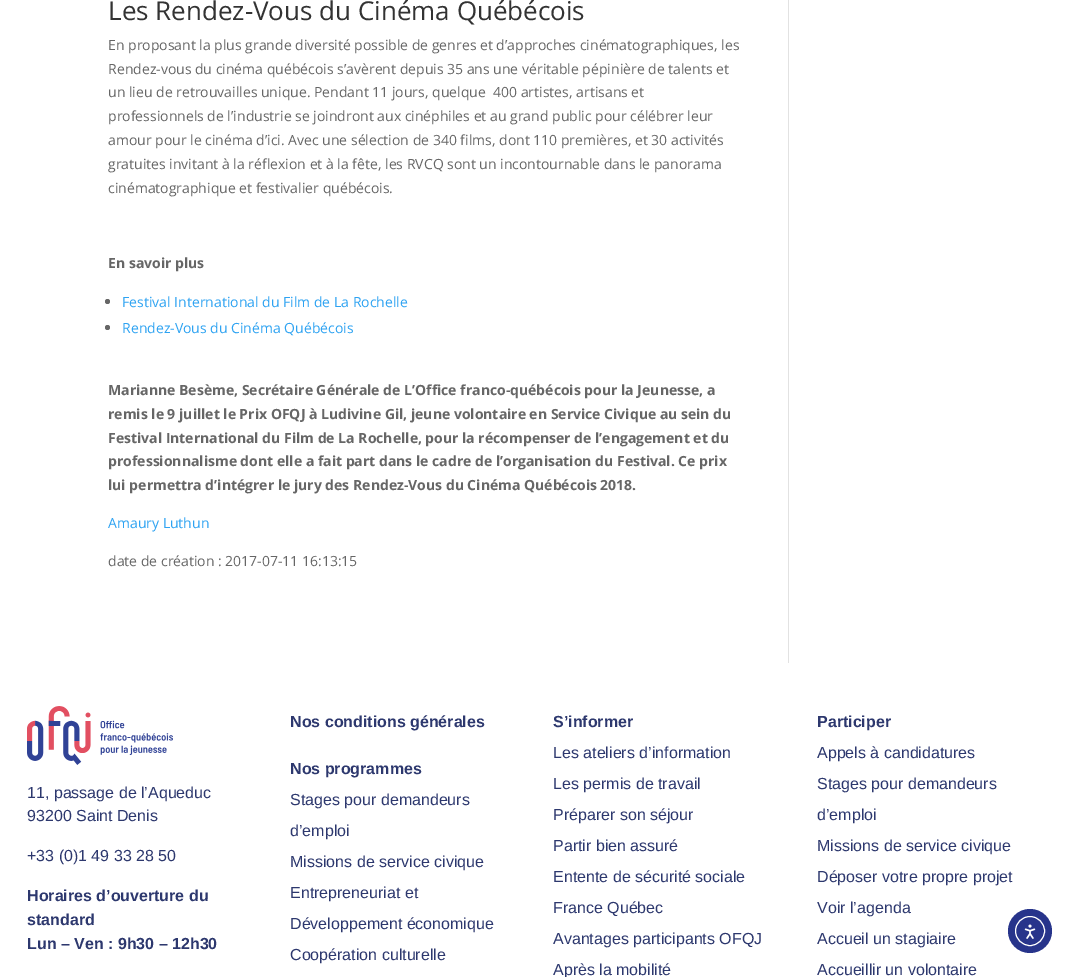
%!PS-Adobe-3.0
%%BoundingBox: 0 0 1076 977
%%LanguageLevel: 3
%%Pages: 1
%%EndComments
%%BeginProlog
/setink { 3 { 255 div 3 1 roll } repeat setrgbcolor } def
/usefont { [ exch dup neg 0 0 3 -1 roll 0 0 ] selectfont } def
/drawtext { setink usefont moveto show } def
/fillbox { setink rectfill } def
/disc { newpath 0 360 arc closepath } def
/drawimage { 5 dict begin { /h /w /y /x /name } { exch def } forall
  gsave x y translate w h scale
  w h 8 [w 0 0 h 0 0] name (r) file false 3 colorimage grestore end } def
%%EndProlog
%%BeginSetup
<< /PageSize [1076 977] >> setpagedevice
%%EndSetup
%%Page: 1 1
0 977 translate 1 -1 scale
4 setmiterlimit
0 0 1076 977 255 255 255 fillbox
(Les Rendez-Vous du Cinéma Québécois) 108 20 /OpenSans-Regular 26 51 51 51 drawtext
(En proposant la plus grande diversité possible de genres et d’approches cinématographiques, les) 108 50 /OpenSans-Regular 14 102 102 102 drawtext
(Rendez-vous du cinéma québécois s’avèrent depuis 35 ans une véritable pépinière de talents et) 108 74 /OpenSans-Regular 14 102 102 102 drawtext
(un lieu de retrouvailles unique. Pendant 11 jours, quelque  400 artistes, artisans et) 108 97 /OpenSans-Regular 14 102 102 102 drawtext
(professionnels de l’industrie se joindront aux cinéphiles et au grand public pour célébrer leur) 108 121 /OpenSans-Regular 14 102 102 102 drawtext
(amour pour le cinéma d’ici. Avec une sélection de 340 films, dont 110 premières, et 30 activités) 108 145 /OpenSans-Regular 14 102 102 102 drawtext
(gratuites invitant à la réflexion et à la fête, les RVCQ sont un incontournable dans le panorama) 108 169 /OpenSans-Regular 14 102 102 102 drawtext
(cinématographique et festivalier québécois.) 108 193 /OpenSans-Regular 14 102 102 102 drawtext
(En savoir plus) 108 268 /OpenSans-Bold 14 102 102 102 drawtext
107.5 301.5 2.5 disc fill
(Festival International du Film de La Rochelle) 122 307 /OpenSans-Regular 14 46 163 242 drawtext
102 102 102 setink
107.5 327.5 2.5 disc fill
(Rendez-Vous du Cinéma Québécois) 122 333 /OpenSans-Regular 14 46 163 242 drawtext
(Marianne Besème, Secrétaire Générale de L’Office franco-québécois pour la Jeunesse, a) 108 395 /OpenSans-Bold 14 102 102 102 drawtext
(remis le 9 juillet le Prix OFQJ à Ludivine Gil, jeune volontaire en Service Civique au sein du) 108 419 /OpenSans-Bold 14 102 102 102 drawtext
(Festival International du Film de La Rochelle, pour la récompenser de l’engagement et du) 108 443 /OpenSans-Bold 14 102 102 102 drawtext
(professionnalisme dont elle a fait part dans le cadre de l’organisation du Festival. Ce prix) 108 466 /OpenSans-Bold 14 102 102 102 drawtext
(lui permettra d’intégrer le jury des Rendez-Vous du Cinéma Québécois 2018.) 108 490 /OpenSans-Bold 14 102 102 102 drawtext
(Amaury Luthun) 108 528 /OpenSans-Regular 14 46 163 242 drawtext
(date de création : 2017-07-11 16:13:15) 108 566 /OpenSans-Regular 14 102 102 102 drawtext
788 0 1 663 226 226 226 fillbox
(assets/img1.rgb) 27 706 146 59 drawimage
(11, passage de l’Aqueduc) 27 798 /LiberationSans-Regular 16 45 56 110 drawtext
(93200 Saint Denis) 27 821 /LiberationSans-Regular 16 45 56 110 drawtext
(+33 \(0\)1 49 33 28 50) 27 861 /LiberationSans-Regular 16 45 56 110 drawtext
(Horaires d’ouverture du) 27 901 /LiberationSans-Bold 16 45 56 110 drawtext
(standard) 27 925 /LiberationSans-Bold 16 45 56 110 drawtext
(Lun – Ven : 9h30 – 12h30) 27 949 /LiberationSans-Bold 16 45 56 110 drawtext
(Nos conditions générales) 290 727 /LiberationSans-Bold 16 45 56 110 drawtext
(Nos programmes) 290 774 /LiberationSans-Bold 16 45 56 110 drawtext
(Stages pour demandeurs) 290 805 /LiberationSans-Regular 16 45 56 110 drawtext
(d’emploi) 290 836 /LiberationSans-Regular 16 45 56 110 drawtext
(Missions de service civique) 290 867 /LiberationSans-Regular 16 45 56 110 drawtext
(Entrepreneuriat et) 290 898 /LiberationSans-Regular 16 45 56 110 drawtext
(Développement économique) 290 929 /LiberationSans-Regular 16 45 56 110 drawtext
(Coopération culturelle) 290 960 /LiberationSans-Regular 16 45 56 110 drawtext
(S’informer) 553 727 /LiberationSans-Bold 16 45 56 110 drawtext
(Les ateliers d’information) 553 758 /LiberationSans-Regular 16 45 56 110 drawtext
(Les permis de travail) 553 789 /LiberationSans-Regular 16 45 56 110 drawtext
(Préparer son séjour) 553 820 /LiberationSans-Regular 16 45 56 110 drawtext
(Partir bien assuré) 553 851 /LiberationSans-Regular 16 45 56 110 drawtext
(Entente de sécurité sociale) 553 882 /LiberationSans-Regular 16 45 56 110 drawtext
(France Québec) 553 913 /LiberationSans-Regular 16 45 56 110 drawtext
(Avantages participants OFQJ) 553 944 /LiberationSans-Regular 16 45 56 110 drawtext
(Après la mobilité) 553 975 /LiberationSans-Regular 16 45 56 110 drawtext
(Participer) 817 727 /LiberationSans-Bold 16 45 56 110 drawtext
(Appels à candidatures) 817 758 /LiberationSans-Regular 16 45 56 110 drawtext
(Stages pour demandeurs) 817 789 /LiberationSans-Regular 16 45 56 110 drawtext
(d’emploi) 817 820 /LiberationSans-Regular 16 45 56 110 drawtext
(Missions de service civique) 817 851 /LiberationSans-Regular 16 45 56 110 drawtext
(Déposer votre propre projet) 817 882 /LiberationSans-Regular 16 45 56 110 drawtext
(Voir l’agenda) 817 913 /LiberationSans-Regular 16 45 56 110 drawtext
(Accueil un stagiaire) 817 944 /LiberationSans-Regular 16 45 56 110 drawtext
(Accueillir un volontaire) 817 975 /LiberationSans-Regular 16 45 56 110 drawtext
39 52 139 setink
1030 931 22 disc fill
255 255 255 setink
1030 931 14.5 disc stroke
(assets/img2.rgb) 1024 924 12 15 drawimage
showpage
%%EOF
